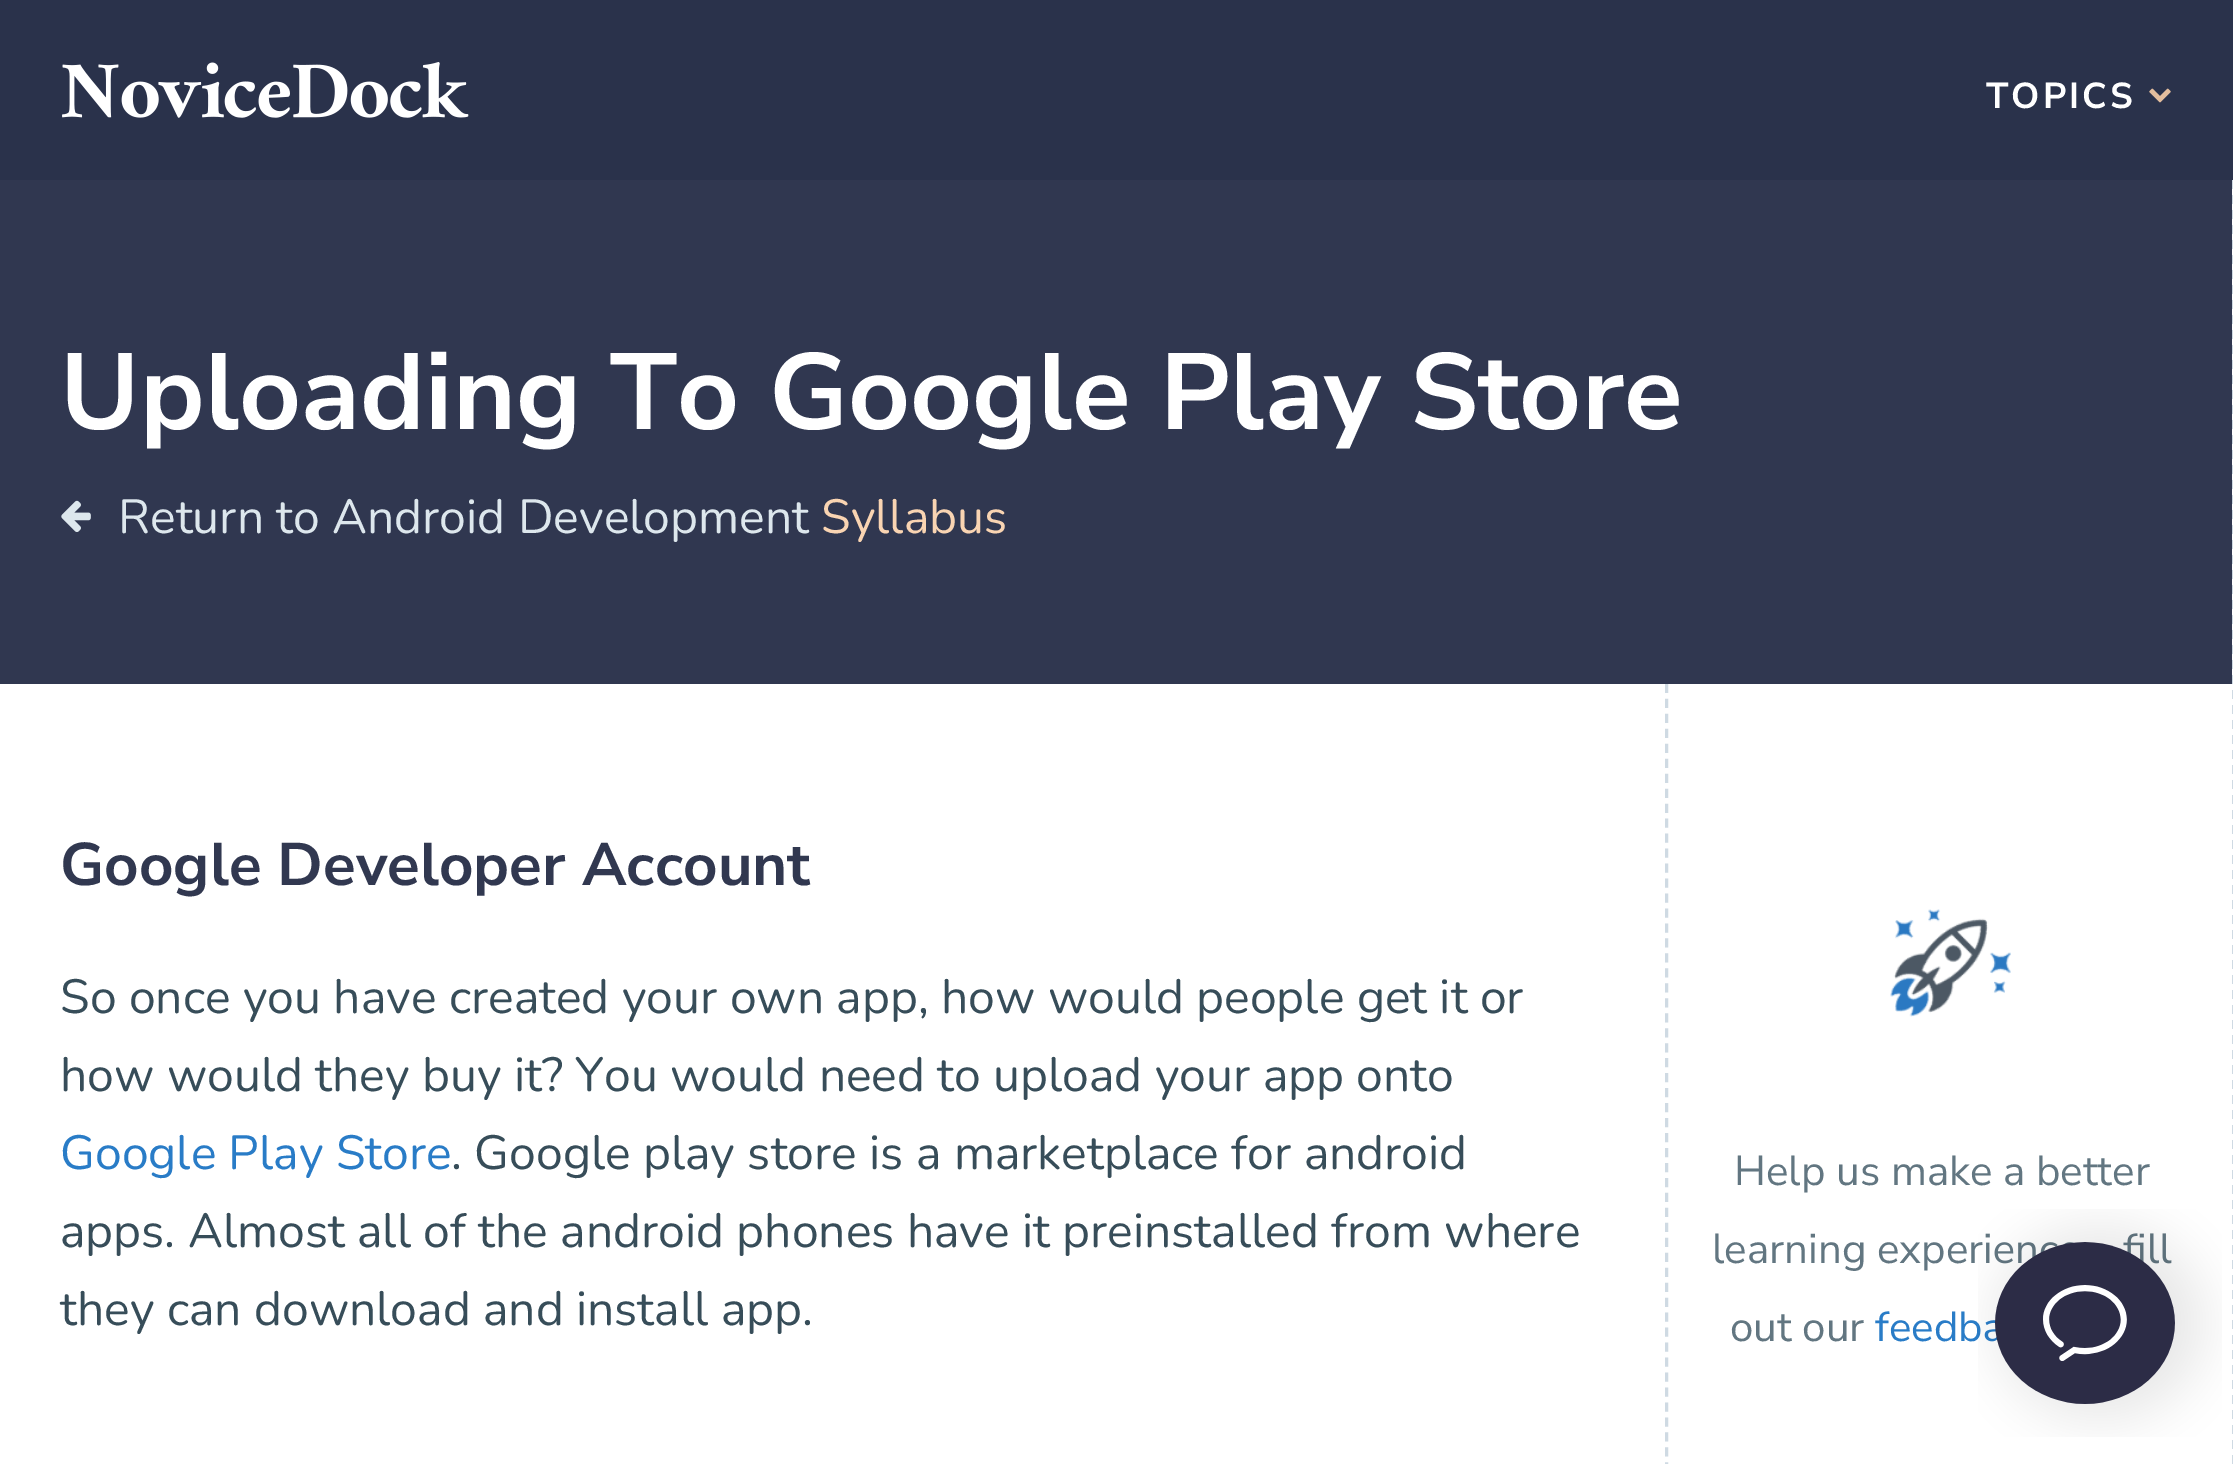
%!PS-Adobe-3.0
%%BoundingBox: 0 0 2233 1464
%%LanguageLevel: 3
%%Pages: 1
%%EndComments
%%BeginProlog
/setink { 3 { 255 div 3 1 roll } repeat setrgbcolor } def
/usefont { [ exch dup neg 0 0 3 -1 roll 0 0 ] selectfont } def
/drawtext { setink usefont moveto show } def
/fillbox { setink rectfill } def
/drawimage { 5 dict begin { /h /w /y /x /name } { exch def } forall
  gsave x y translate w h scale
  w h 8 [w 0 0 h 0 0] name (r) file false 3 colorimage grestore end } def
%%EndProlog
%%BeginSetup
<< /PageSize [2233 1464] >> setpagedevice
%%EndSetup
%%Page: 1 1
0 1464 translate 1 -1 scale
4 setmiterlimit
0 0 2233 1464 255 255 255 fillbox
0 0 2233 180 42 50 75 fillbox
(assets/img1.rgb) 62 62 407 56 drawimage
/NunitoSans-Bold 36 usefont
255 255 255 setink
1986 108 moveto 3 0 (TOPICS) ashow
(assets/img2.rgb) 2149 88 22 15 drawimage
207 218 227 setink
3 setlinewidth
[9 6] 0 setdash
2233.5 180 moveto 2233.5 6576 lineto stroke
0 180 2232 504 48 55 80 fillbox
(Uploading To Google Play Store) 60 429 /NunitoSans-Bold 108 255 255 255 drawtext
(assets/img3.rgb) 61 500 30 32 drawimage
(Return to Android Development) 118 533 /Nunito-Regular 48 221 231 237 drawtext
(Syllabus) 821 533 /Nunito-Regular 48 249 212 178 drawtext
207 218 227 setink
[9 5.97] 0 setdash
1666.5 684 moveto 1666.5 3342 lineto stroke
(Google Developer Account) 60 885 /NunitoSans-Bold 60 49 56 80 drawtext
(So once you have created your own app, how would people get it or) 60 1013 /Nunito-Regular 48 55 77 89 drawtext
(how would they buy it? You would need to upload your app onto) 60 1091 /Nunito-Regular 48 55 77 89 drawtext
(Google Play Store) 60 1169 /Nunito-Regular 48 41 124 199 drawtext
(. Google play store is a marketplace for android) 451 1169 /Nunito-Regular 48 55 77 89 drawtext
(apps. Almost all of the android phones have it preinstalled from where) 60 1247 /Nunito-Regular 48 55 77 89 drawtext
(they can download and install app.) 60 1325 /Nunito-Regular 48 55 77 89 drawtext
(assets/img4.rgb) 1890 909 121 108 drawimage
(Help us make a better) 1734 1185 /NunitoSans-Regular 42 98 118 129 drawtext
(learning experien) 1712 1263 /NunitoSans-Regular 42 98 118 129 drawtext
(fill) 2123 1263 /NunitoSans-Regular 42 98 118 129 drawtext
(out our) 1730 1341 /NunitoSans-Regular 42 98 118 129 drawtext
(feedba) 1875 1341 /NunitoSans-Regular 42 41 124 199 drawtext
(assets/img5.rgb) 1978 1209 244 228 drawimage
showpage
%%EOF
